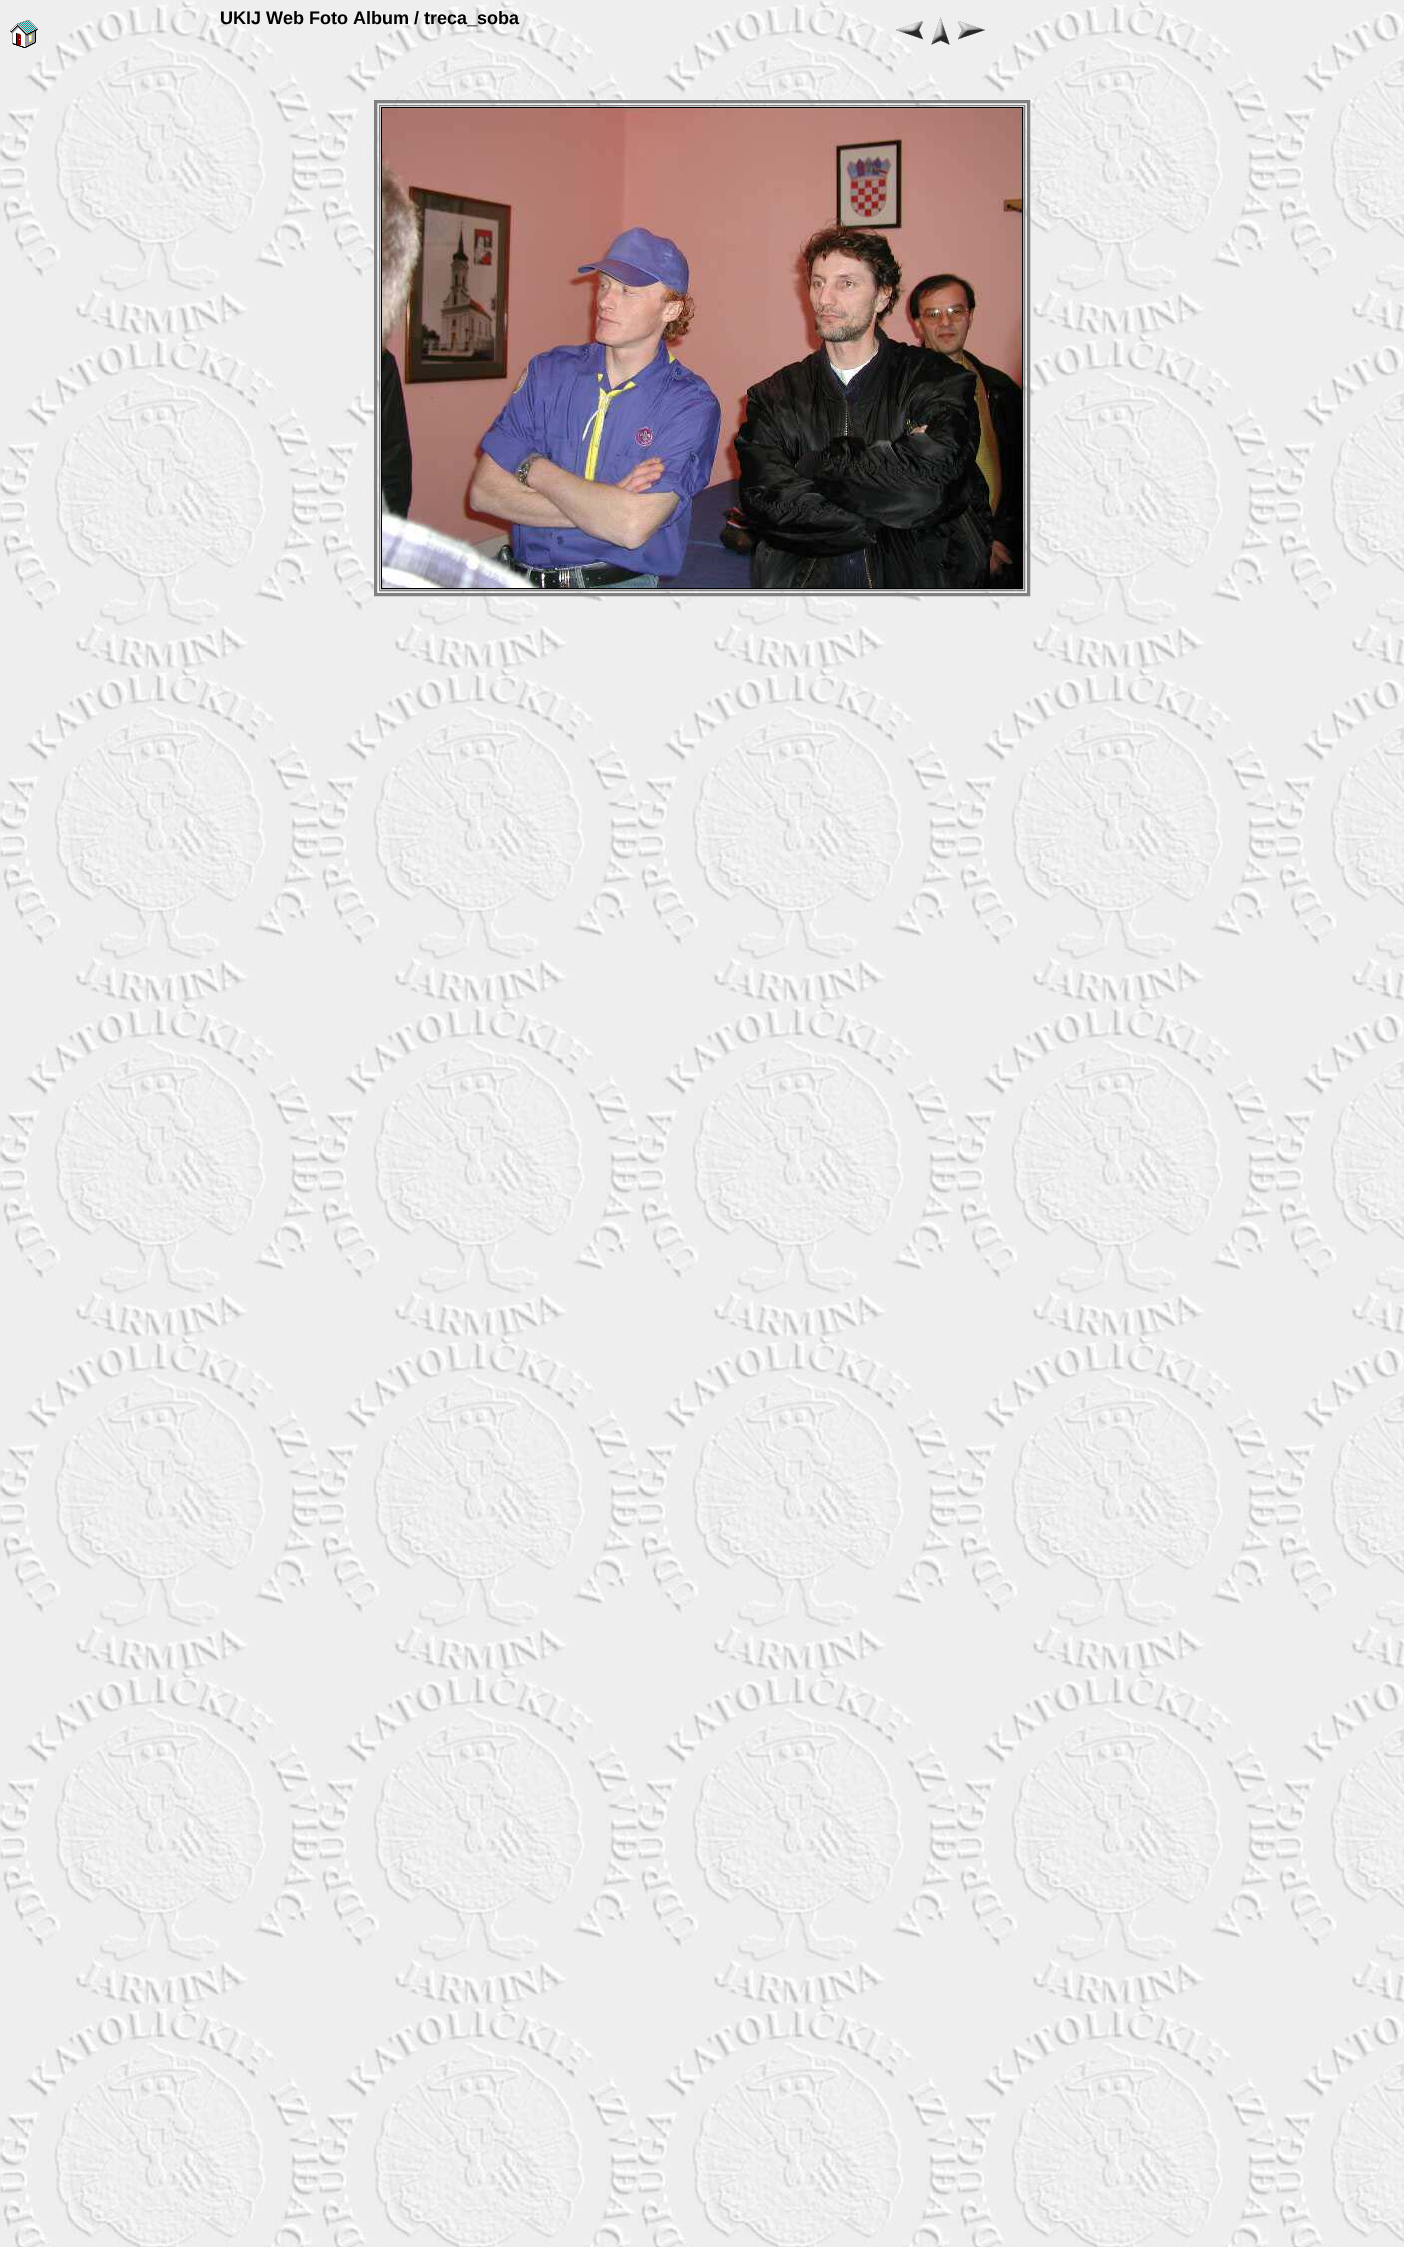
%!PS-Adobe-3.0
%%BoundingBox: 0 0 1404 2247
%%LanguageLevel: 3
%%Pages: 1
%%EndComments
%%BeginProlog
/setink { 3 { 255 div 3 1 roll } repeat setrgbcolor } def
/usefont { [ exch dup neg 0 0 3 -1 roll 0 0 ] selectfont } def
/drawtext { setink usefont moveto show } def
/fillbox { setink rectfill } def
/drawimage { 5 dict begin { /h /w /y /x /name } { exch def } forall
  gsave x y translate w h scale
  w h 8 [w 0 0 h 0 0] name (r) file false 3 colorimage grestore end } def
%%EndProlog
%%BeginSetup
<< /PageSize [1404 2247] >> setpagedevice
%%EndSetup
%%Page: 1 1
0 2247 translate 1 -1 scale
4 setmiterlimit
0 0 1404 2247 255 255 255 fillbox
(assets/img1.rgb) 0 0 1404 2247 drawimage
(assets/img2.rgb) 10 20 28 28 drawimage
(UKIJ Web Foto Album / treca_soba) 220 24 /LiberationSans-Bold 18 0 0 0 drawtext
(assets/img3.rgb) 896 21 27 19 drawimage
(assets/img4.rgb) 931 17 19 28 drawimage
(assets/img5.rgb) 958 21 27 19 drawimage
128 128 128 setink
3 setlinewidth
375.5 101.5 653 493 rectstroke
1 setlinewidth
379.5 105.5 645 485 rectstroke
0 0 0 setink
381.5 107.5 641 481 rectstroke
(assets/img6.rgb) 382 108 640 480 drawimage
showpage
%%EOF
